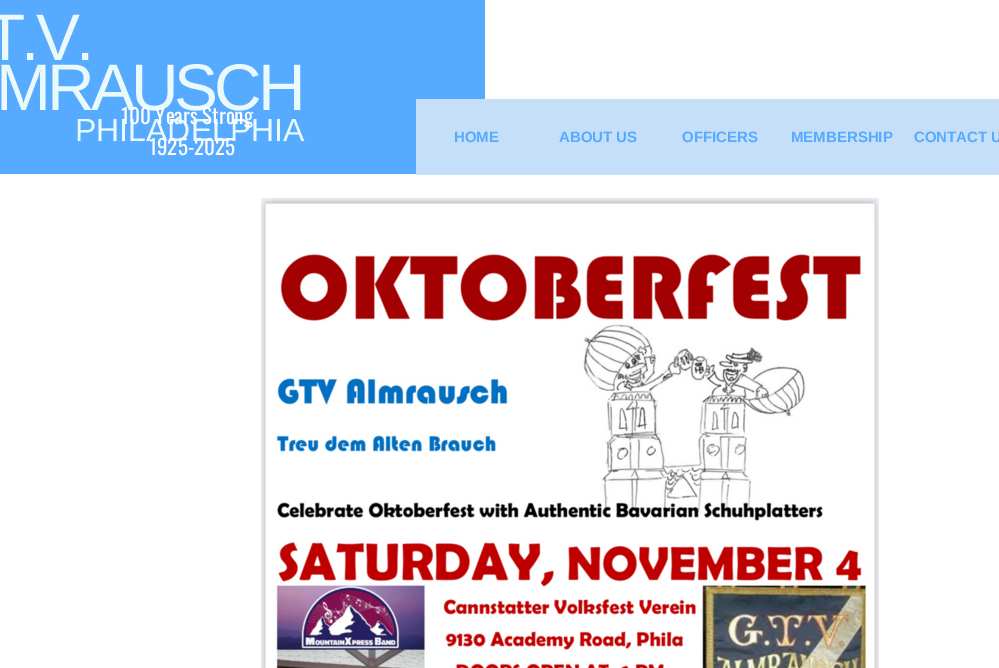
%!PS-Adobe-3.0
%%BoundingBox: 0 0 999 668
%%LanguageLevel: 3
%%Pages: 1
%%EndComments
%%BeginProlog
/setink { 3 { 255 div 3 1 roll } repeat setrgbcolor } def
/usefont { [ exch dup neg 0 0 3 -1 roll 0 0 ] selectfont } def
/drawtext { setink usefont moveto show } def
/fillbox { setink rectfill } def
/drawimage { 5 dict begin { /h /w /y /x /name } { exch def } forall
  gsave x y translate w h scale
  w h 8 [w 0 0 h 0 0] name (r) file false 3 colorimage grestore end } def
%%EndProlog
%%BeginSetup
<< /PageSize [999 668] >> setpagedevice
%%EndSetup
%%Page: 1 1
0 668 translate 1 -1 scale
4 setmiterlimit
0 0 999 668 255 255 255 fillbox
0 0 485 174 86 170 255 fillbox
/LiberationSans-Regular 66 usefont
234 249 249 setink
-15 60 moveto -4 0 (T.V.) ashow
-4 110 moveto -4 0 (MRAUSCH) ashow
(PHILADELPHIA) 75 141 /LiberationSans-Regular 32 234 249 249 drawtext
(100 Years Strong) 121 124 /Oswald-Regular 21 255 255 255 drawtext
(1925-2025) 149 155 /Oswald-Regular 21 255 255 255 drawtext
416 99 583 76 197 223 249 fillbox
(HOME) 454 142 /LiberationSans-Bold 15 86 170 255 drawtext
(ABOUT US) 559 142 /LiberationSans-Bold 15 86 170 255 drawtext
(OFFICERS) 682 142 /LiberationSans-Bold 15 86 170 255 drawtext
(MEMBERSHIP) 791 142 /LiberationSans-Bold 15 86 170 255 drawtext
(CONTACT U) 914 142 /LiberationSans-Bold 15 86 170 255 drawtext
(assets/img1.rgb) 261 198 618 470 drawimage
showpage
%%EOF
